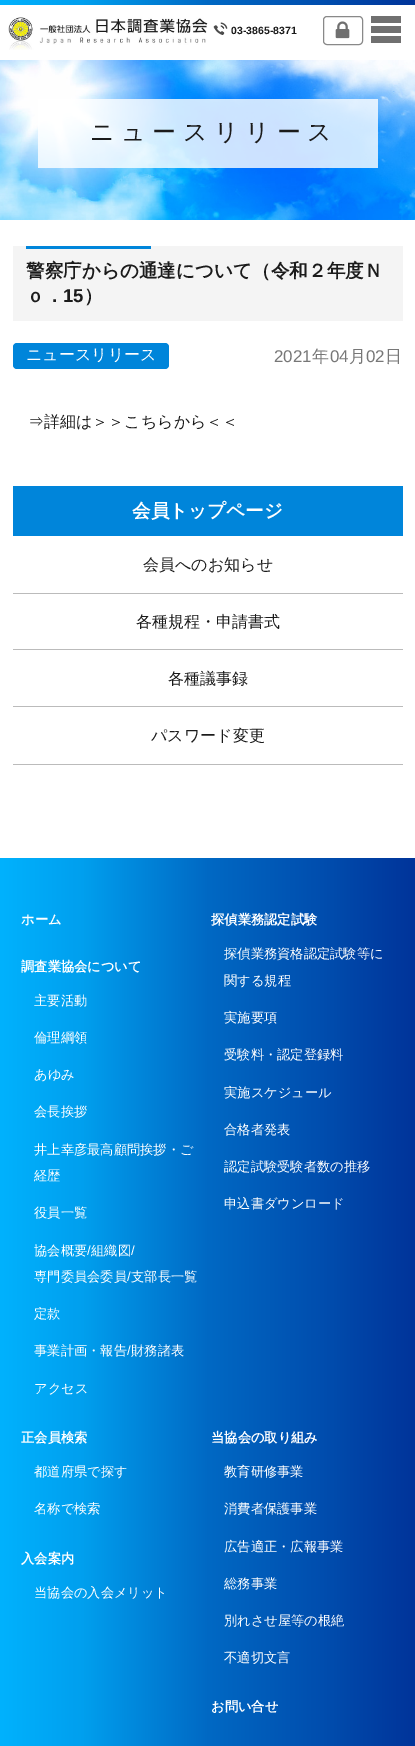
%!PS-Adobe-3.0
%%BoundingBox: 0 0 415 1746
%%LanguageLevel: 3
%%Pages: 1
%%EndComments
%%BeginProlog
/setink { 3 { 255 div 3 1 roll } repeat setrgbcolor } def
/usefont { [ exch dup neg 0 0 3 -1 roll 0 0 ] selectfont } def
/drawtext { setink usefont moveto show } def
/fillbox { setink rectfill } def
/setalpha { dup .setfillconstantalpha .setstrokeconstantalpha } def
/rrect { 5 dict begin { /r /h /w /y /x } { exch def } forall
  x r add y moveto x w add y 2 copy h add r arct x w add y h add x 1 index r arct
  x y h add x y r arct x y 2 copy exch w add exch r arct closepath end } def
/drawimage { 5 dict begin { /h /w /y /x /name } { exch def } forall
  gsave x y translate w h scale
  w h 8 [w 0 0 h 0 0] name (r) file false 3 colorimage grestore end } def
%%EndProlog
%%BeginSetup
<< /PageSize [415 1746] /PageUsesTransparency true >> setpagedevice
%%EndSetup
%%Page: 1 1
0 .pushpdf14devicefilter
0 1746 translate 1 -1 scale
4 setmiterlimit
0 0 415 1746 255 255 255 fillbox
gsave 0 0 moveto 415 0 lineto 415 5 lineto 0 5 lineto closepath clip newpath
<< /ShadingType 2 /ColorSpace /DeviceRGB /Coords [0 2.5 415 2.5] /Extend [true true] /Function << /FunctionType 3 /Domain [0 1] /Functions [<< /FunctionType 2 /Domain [0 1] /C0 [0 0.698 0.992] /C1 [0 0.624 0.933] /N 1 >> << /FunctionType 2 /Domain [0 1] /C0 [0 0.624 0.933] /C1 [0 0.412 0.769] /N 1 >> << /FunctionType 2 /Domain [0 1] /C0 [0 0.412 0.769] /C1 [0 0.294 0.675] /N 1 >> << /FunctionType 2 /Domain [0 1] /C0 [0 0.294 0.675] /C1 [0 0.204 0.604] /N 1 >>] /Bounds [0.2 0.5 0.8] /Encode [0 1 0 1 0 1 0 1] >> >> shfill grestore
(assets/img1.rgb) 8 17 200 33 drawimage
(assets/img2.rgb) 213 22 15 13 drawimage
(03-3865-8371) 231 34 /LiberationSans-Bold 10.5 27 27 27 drawtext
137 137 137 setink
323.5 16.5 39 28 3.5 rrect stroke
(assets/img3.rgb) 335 21 15 18 drawimage
371 16 30 7 112 112 112 fillbox
371 26 30 7 112 112 112 fillbox
371 36 30 7 112 112 112 fillbox
(assets/img4.rgb) 0 60 415 160 drawimage
0.8 setalpha
38 99 340 69 255 255 255 fillbox
/WenQuanYiZenHei-Medium 23.9 usefont
1 setalpha
27 27 27 setink
90 140 moveto 6.75 0 (ニュースリリース) ashow
13 246 390 75 244 244 244 fillbox
26 246 125 3 0 133 218 fillbox
(警察庁からの通達について（令和２年度Ｎ) 26 277 /WenQuanYiZenHei-Bold 18.6 27 27 27 drawtext
(ｏ．) 26 302 /WenQuanYiZenHei-Bold 18.6 27 27 27 drawtext
(15) 63 302 /LiberationSans-Bold 18.6 27 27 27 drawtext
(）) 84 302 /WenQuanYiZenHei-Bold 18.6 27 27 27 drawtext
0 133 218 setink
13 343 156 26 4 rrect fill
(ニュースリリース) 26 360 /WenQuanYiZenHei-Medium 16 255 255 255 drawtext
(2021) 274 362 /LiberationSans-Regular 17 119 119 119 drawtext
(年) 312 362 /WenQuanYiZenHei-Medium 17 119 119 119 drawtext
(04) 330 362 /LiberationSans-Regular 17 119 119 119 drawtext
(月) 349 362 /WenQuanYiZenHei-Medium 17 119 119 119 drawtext
(02) 366 362 /LiberationSans-Regular 17 119 119 119 drawtext
(日) 385 362 /WenQuanYiZenHei-Medium 17 119 119 119 drawtext
(⇒詳細は＞＞こちらから＜＜) 28 427 /WenQuanYiZenHei-Medium 16 27 27 27 drawtext
13 486 390 50 0 133 218 fillbox
(会員トップページ) 132 517 /WenQuanYiZenHei-Bold 18.6 255 255 255 drawtext
13 593 390 1 187 187 187 fillbox
(会員へのお知らせ) 143 570 /WenQuanYiZenHei-Medium 16 27 27 27 drawtext
13 649 390 1 187 187 187 fillbox
(各種規程・申請書式) 136 627 /WenQuanYiZenHei-Medium 16 27 27 27 drawtext
13 706 390 1 187 187 187 fillbox
(各種議事録) 168 684 /WenQuanYiZenHei-Medium 16 27 27 27 drawtext
13 764 390 1 187 187 187 fillbox
(パスワード変更) 151 741 /WenQuanYiZenHei-Medium 16 27 27 27 drawtext
gsave 0 858 moveto 415 858 lineto 415 1746 lineto 0 1746 lineto closepath clip newpath
<< /ShadingType 2 /ColorSpace /DeviceRGB /Coords [0 1644 415 1644] /Extend [true true] /Function << /FunctionType 3 /Domain [0 1] /Functions [<< /FunctionType 2 /Domain [0 1] /C0 [0 0.698 0.992] /C1 [0 0.624 0.933] /N 1 >> << /FunctionType 2 /Domain [0 1] /C0 [0 0.624 0.933] /C1 [0 0.412 0.769] /N 1 >> << /FunctionType 2 /Domain [0 1] /C0 [0 0.412 0.769] /C1 [0 0.294 0.675] /N 1 >> << /FunctionType 2 /Domain [0 1] /C0 [0 0.294 0.675] /C1 [0 0.204 0.604] /N 1 >>] /Bounds [0.2 0.5 0.8] /Encode [0 1 0 1 0 1 0 1] >> >> shfill grestore
(ホーム) 21 924 /WenQuanYiZenHei-Bold 13.25 255 255 255 drawtext
(調査業協会について) 21 971 /WenQuanYiZenHei-Bold 13.25 255 255 255 drawtext
(主要活動) 34 1005 /WenQuanYiZenHei-Medium 13.25 255 255 255 drawtext
(倫理綱領) 34 1042 /WenQuanYiZenHei-Medium 13.25 255 255 255 drawtext
(あゆみ) 34 1079 /WenQuanYiZenHei-Medium 13.25 255 255 255 drawtext
(会長挨拶) 34 1116 /WenQuanYiZenHei-Medium 13.25 255 255 255 drawtext
(井上幸彦最高顧問挨拶・ご) 34 1154 /WenQuanYiZenHei-Medium 13.25 255 255 255 drawtext
(経歴) 34 1180 /WenQuanYiZenHei-Medium 13.25 255 255 255 drawtext
(役員一覧) 34 1217 /WenQuanYiZenHei-Medium 13.25 255 255 255 drawtext
(協会概要) 34 1255 /WenQuanYiZenHei-Medium 13.25 255 255 255 drawtext
(/) 87 1255 /LiberationSans-Regular 13.25 255 255 255 drawtext
(組織図) 91 1255 /WenQuanYiZenHei-Medium 13.25 255 255 255 drawtext
(/) 131 1255 /LiberationSans-Regular 13.25 255 255 255 drawtext
(専門委員会委員) 34 1281 /WenQuanYiZenHei-Medium 13.25 255 255 255 drawtext
(/) 127 1281 /LiberationSans-Regular 13.25 255 255 255 drawtext
(支部長一覧) 131 1281 /WenQuanYiZenHei-Medium 13.25 255 255 255 drawtext
(定款) 34 1318 /WenQuanYiZenHei-Medium 13.25 255 255 255 drawtext
(事業計画・報告) 34 1355 /WenQuanYiZenHei-Medium 13.25 255 255 255 drawtext
(/) 127 1355 /LiberationSans-Regular 13.25 255 255 255 drawtext
(財務諸表) 131 1355 /WenQuanYiZenHei-Medium 13.25 255 255 255 drawtext
(アクセス) 34 1393 /WenQuanYiZenHei-Medium 13.25 255 255 255 drawtext
(探偵業務認定試験) 211 924 /WenQuanYiZenHei-Bold 13.25 255 255 255 drawtext
(探偵業務資格認定試験等に) 224 958 /WenQuanYiZenHei-Medium 13.25 255 255 255 drawtext
(関する規程) 224 985 /WenQuanYiZenHei-Medium 13.25 255 255 255 drawtext
(実施要項) 224 1022 /WenQuanYiZenHei-Medium 13.25 255 255 255 drawtext
(受験料・認定登録料) 224 1059 /WenQuanYiZenHei-Medium 13.25 255 255 255 drawtext
(実施スケジュール) 224 1097 /WenQuanYiZenHei-Medium 13.25 255 255 255 drawtext
(合格者発表) 224 1134 /WenQuanYiZenHei-Medium 13.25 255 255 255 drawtext
(認定試験受験者数の推移) 224 1171 /WenQuanYiZenHei-Medium 13.25 255 255 255 drawtext
(申込書ダウンロード) 224 1208 /WenQuanYiZenHei-Medium 13.25 255 255 255 drawtext
(正会員検索) 21 1442 /WenQuanYiZenHei-Bold 13.25 255 255 255 drawtext
(都道府県で探す) 34 1476 /WenQuanYiZenHei-Medium 13.25 255 255 255 drawtext
(名称で検索) 34 1513 /WenQuanYiZenHei-Medium 13.25 255 255 255 drawtext
(入会案内) 21 1563 /WenQuanYiZenHei-Bold 13.25 255 255 255 drawtext
(当協会の入会メリット) 34 1597 /WenQuanYiZenHei-Medium 13.25 255 255 255 drawtext
(当協会の取り組み) 211 1442 /WenQuanYiZenHei-Bold 13.25 255 255 255 drawtext
(教育研修事業) 224 1476 /WenQuanYiZenHei-Medium 13.25 255 255 255 drawtext
(消費者保護事業) 224 1513 /WenQuanYiZenHei-Medium 13.25 255 255 255 drawtext
(広告適正・広報事業) 224 1551 /WenQuanYiZenHei-Medium 13.25 255 255 255 drawtext
(総務事業) 224 1588 /WenQuanYiZenHei-Medium 13.25 255 255 255 drawtext
(別れさせ屋等の根絶) 224 1625 /WenQuanYiZenHei-Medium 13.25 255 255 255 drawtext
(不適切文言) 224 1662 /WenQuanYiZenHei-Medium 13.25 255 255 255 drawtext
(お問い合せ) 211 1711 /WenQuanYiZenHei-Bold 13.25 255 255 255 drawtext
.poppdf14devicefilter showpage
%%EOF
